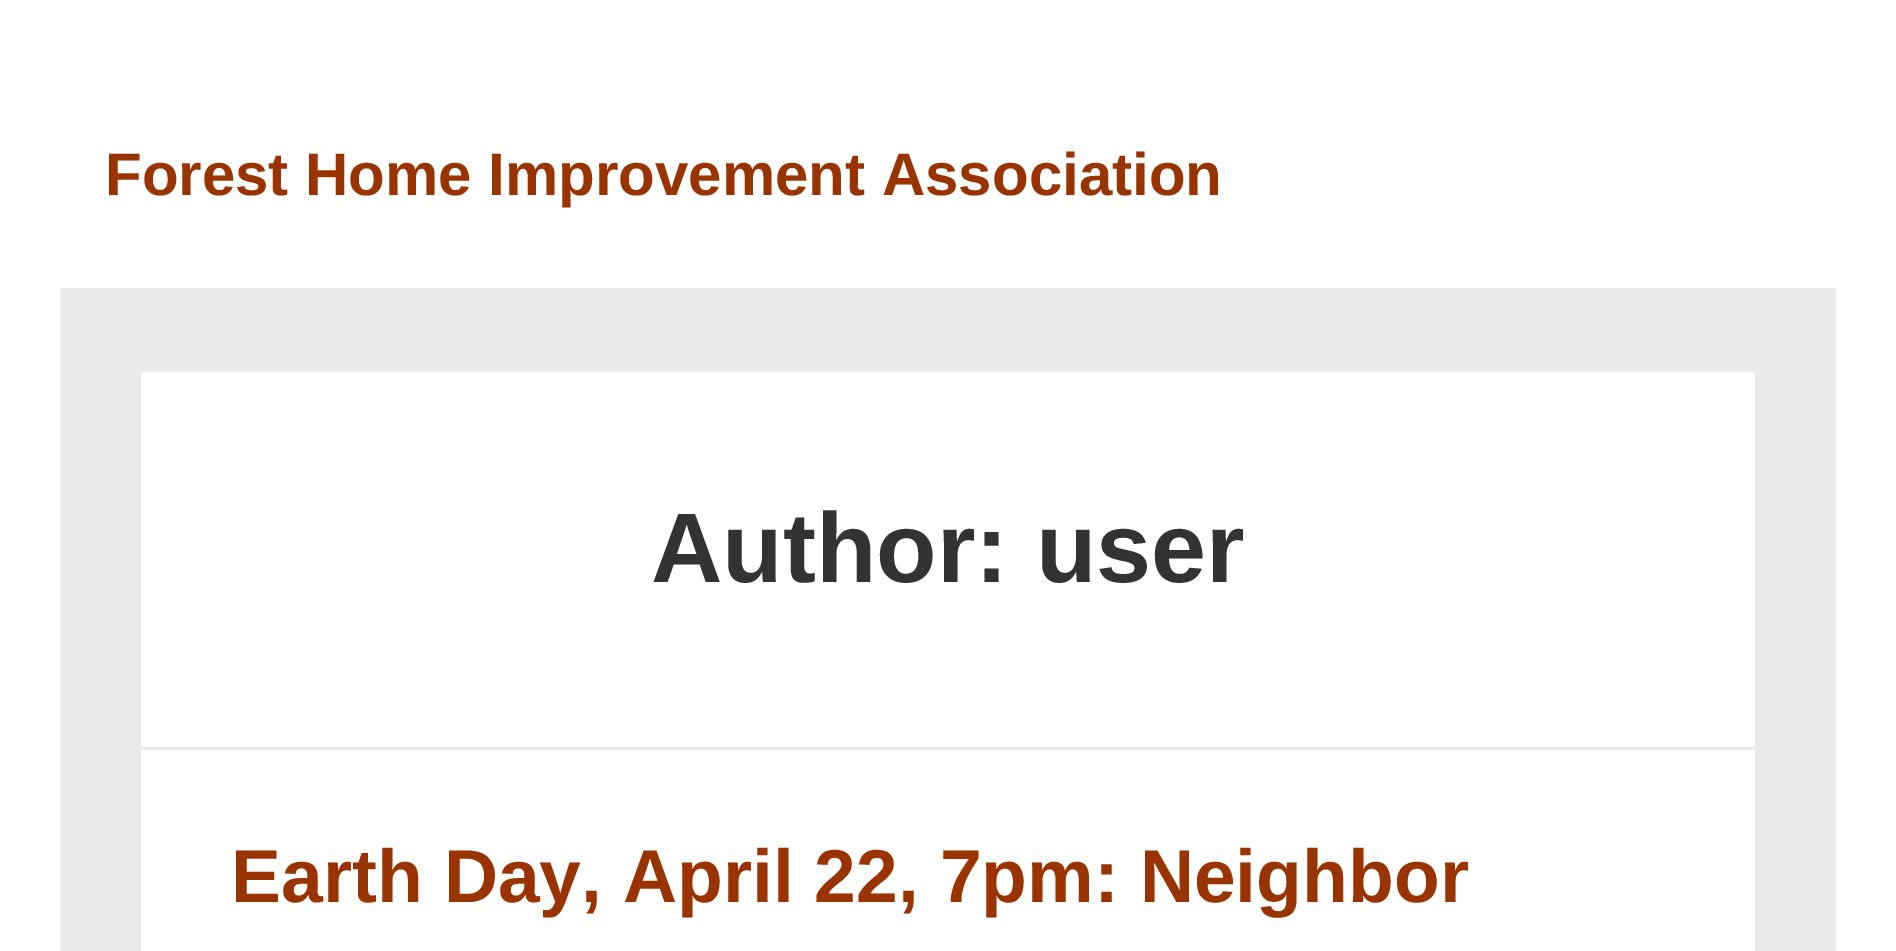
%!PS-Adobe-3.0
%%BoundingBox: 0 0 1896 951
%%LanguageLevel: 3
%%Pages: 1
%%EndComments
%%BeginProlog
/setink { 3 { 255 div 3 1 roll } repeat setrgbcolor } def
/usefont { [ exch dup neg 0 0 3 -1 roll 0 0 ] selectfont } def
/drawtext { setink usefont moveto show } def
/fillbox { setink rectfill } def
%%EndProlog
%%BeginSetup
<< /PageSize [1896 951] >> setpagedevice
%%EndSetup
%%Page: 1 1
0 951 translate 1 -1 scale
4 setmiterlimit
0 0 1896 951 234 234 234 fillbox
255 255 255 setink
60 setlinewidth
30 30 1836 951 rectstroke
60 60 1776 228 255 255 255 fillbox
(Forest Home Improvement Association) 105 195 /LiberationSans-Bold 60 153 51 0 drawtext
141 372 1614 579 255 255 255 fillbox
141 747 1614 3 234 234 234 fillbox
(Author: user) 651 582 /LiberationSans-Bold 99 51 51 51 drawtext
(Earth Day, April 22, 7pm: Neighbor) 231 902 /LiberationSans-Bold 75 153 51 0 drawtext
showpage
%%EOF
